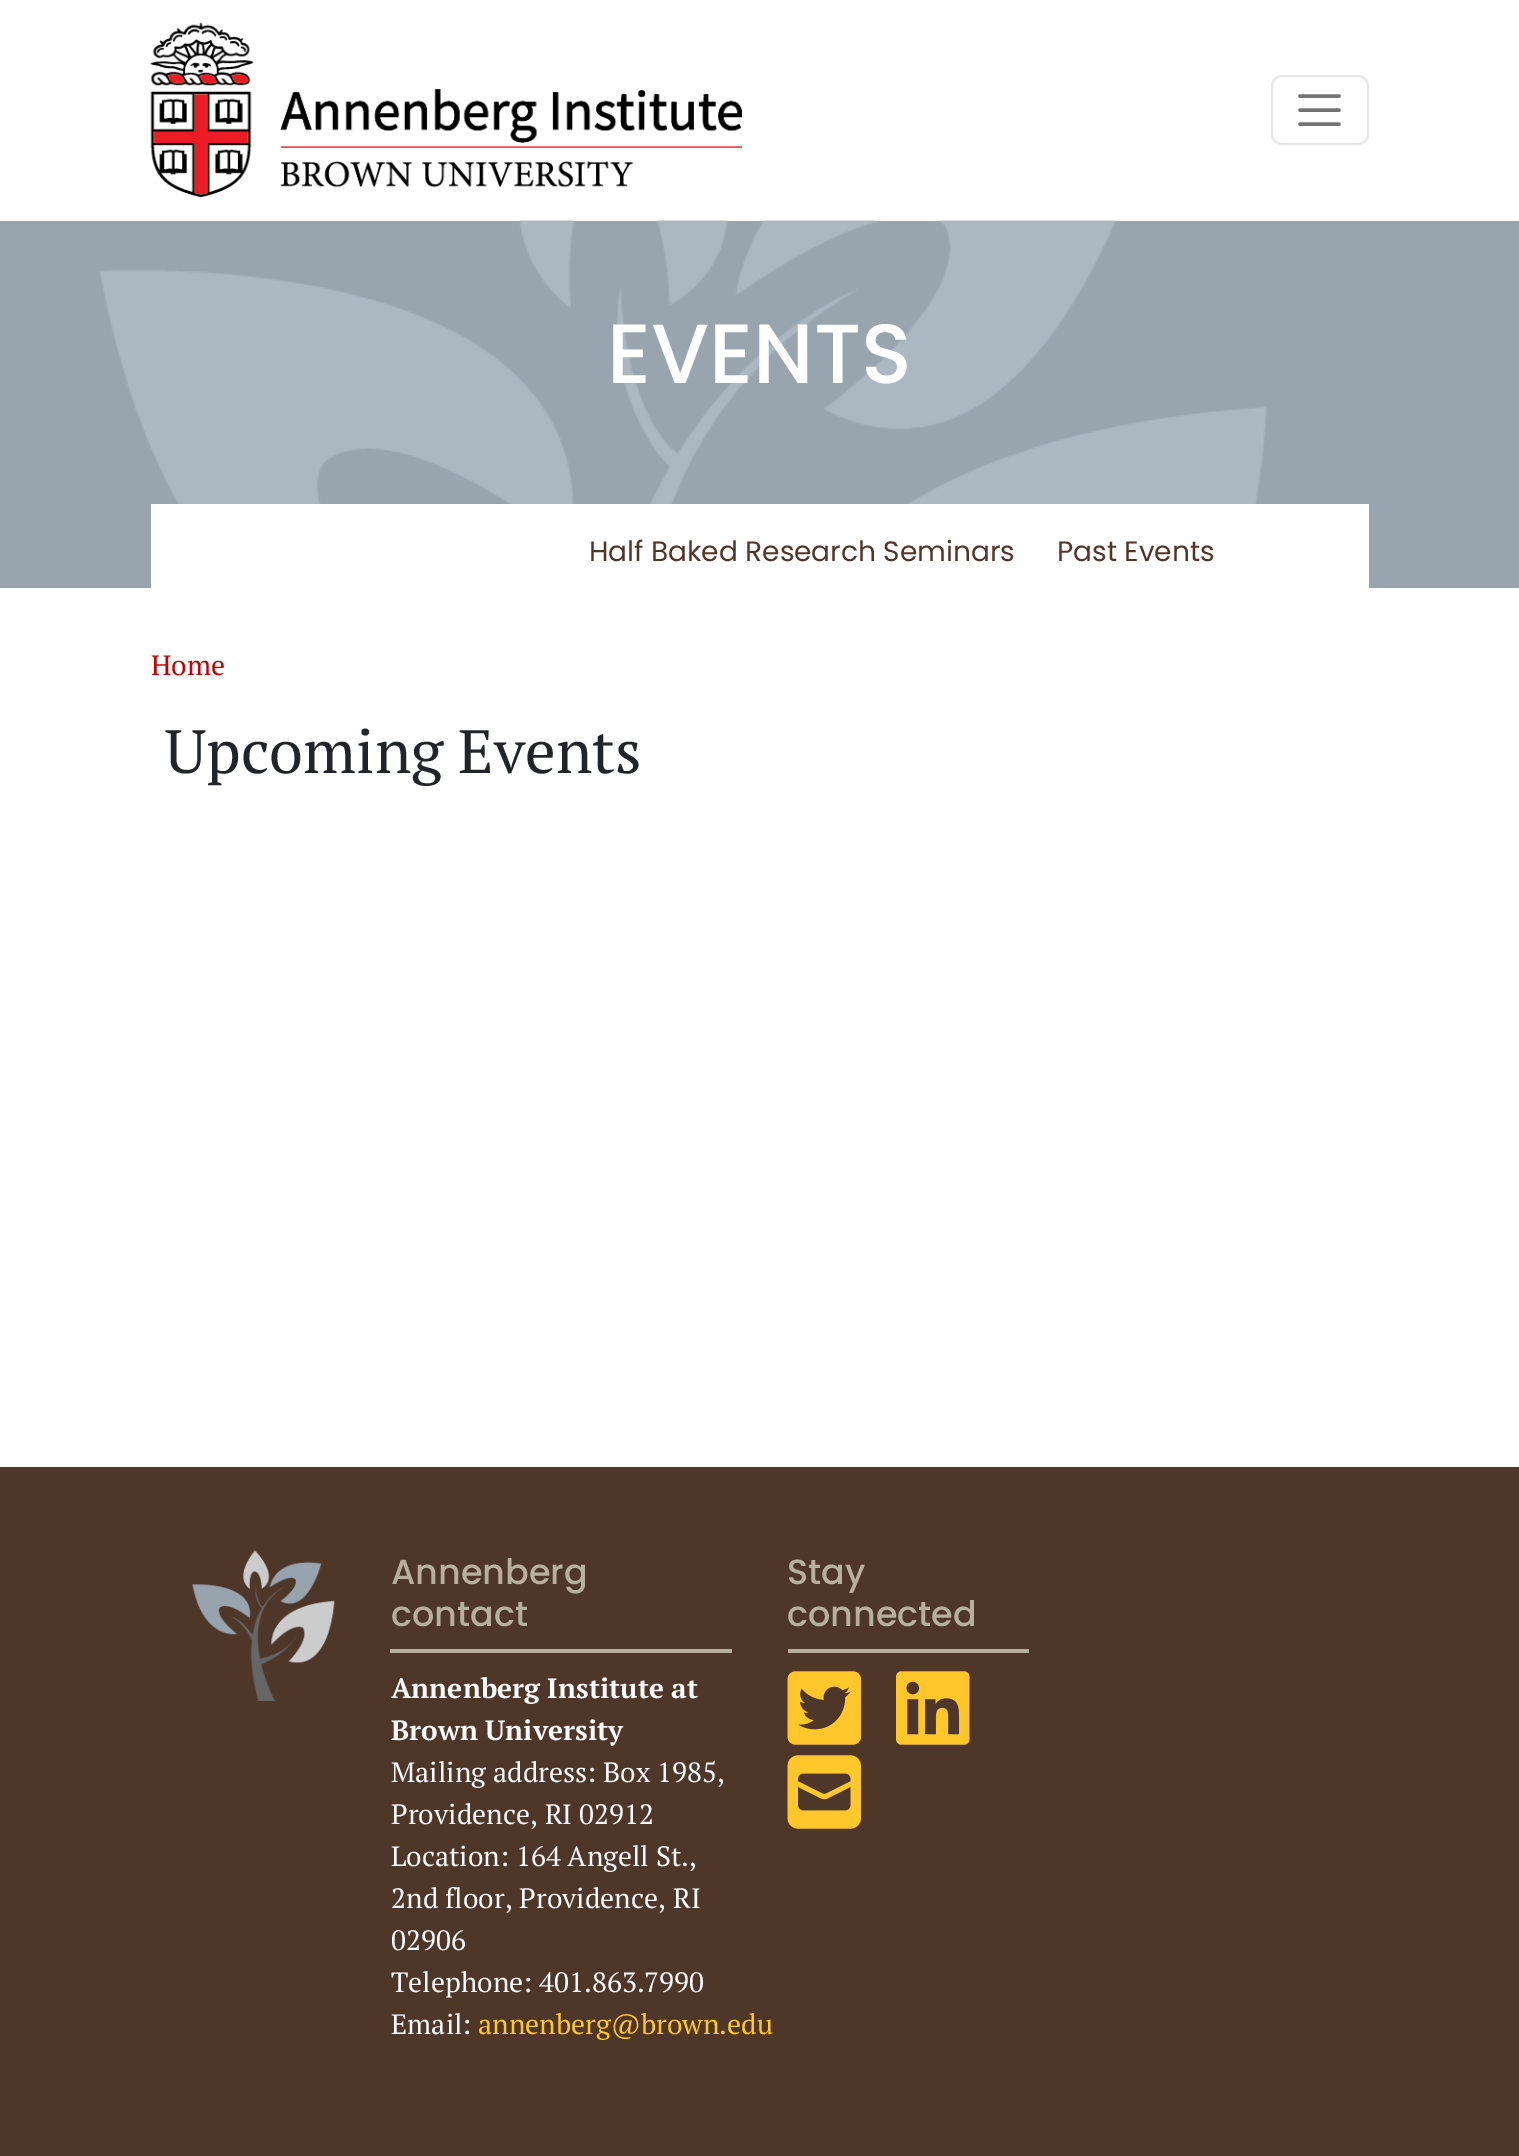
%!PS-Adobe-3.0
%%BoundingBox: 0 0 1519 2156
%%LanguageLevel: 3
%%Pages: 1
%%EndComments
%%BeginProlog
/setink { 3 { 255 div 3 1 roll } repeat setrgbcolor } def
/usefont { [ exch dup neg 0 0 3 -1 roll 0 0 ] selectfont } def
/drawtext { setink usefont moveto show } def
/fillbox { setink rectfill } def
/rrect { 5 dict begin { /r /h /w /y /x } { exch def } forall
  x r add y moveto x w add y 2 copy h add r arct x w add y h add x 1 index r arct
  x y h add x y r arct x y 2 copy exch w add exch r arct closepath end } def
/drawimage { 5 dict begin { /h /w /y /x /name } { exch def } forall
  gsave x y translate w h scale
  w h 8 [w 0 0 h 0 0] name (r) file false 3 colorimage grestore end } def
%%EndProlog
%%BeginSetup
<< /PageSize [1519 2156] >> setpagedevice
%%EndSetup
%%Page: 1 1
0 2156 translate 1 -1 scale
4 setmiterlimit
0 0 1519 2156 255 255 255 fillbox
(assets/img1.rgb) 150 22 592 176 drawimage
230 230 230 setink
2 setlinewidth
1272 76 96 68 10 rrect stroke
115 115 115 setink
3.5 setlinewidth
1 setlinecap
1300 96 moveto 1339 96 lineto 1300 110 moveto 1339 110 lineto 1300 124 moveto 1339 124 lineto stroke
0 221 1519 367 152 164 174 fillbox
(assets/img2.rgb) 99 220 1168 284 drawimage
(EVENTS) 607 383 /Poppins-Medium 84 255 255 255 drawtext
151 504 1218 84 255 255 255 fillbox
(Half Baked Research Seminars) 589 561 /Poppins-Regular 28 82 52 41 drawtext
(Past Events) 1057 561 /Poppins-Regular 28 82 52 41 drawtext
(Home) 151 675 /PTSerif-Regular 28 192 4 4 drawtext
(Upcoming Events) 165 773 /PTSerif-Regular 61.25 33 37 41 drawtext
0 1467 1519 689 78 54 41 fillbox
(assets/img3.rgb) 192 1550 143 151 drawimage
390 1649 342 4 183 176 156 fillbox
(Annenberg) 391 1584 /Poppins-Medium 35 183 176 156 drawtext
(contact) 391 1626 /Poppins-Medium 35 183 176 156 drawtext
(Annenberg Institute at) 391 1698 /PTSerif-Bold 28 248 249 250 drawtext
(Brown University) 391 1740 /PTSerif-Bold 28 248 249 250 drawtext
(Mailing address: Box 1985,) 391 1782 /PTSerif-Regular 28 248 249 250 drawtext
(Providence, RI 02912) 391 1824 /PTSerif-Regular 28 248 249 250 drawtext
(Location: 164 Angell St.,) 391 1866 /PTSerif-Regular 28 248 249 250 drawtext
(2nd floor, Providence, RI) 391 1908 /PTSerif-Regular 28 248 249 250 drawtext
(02906) 391 1950 /PTSerif-Regular 28 248 249 250 drawtext
(Telephone: 401.863.7990) 391 1992 /PTSerif-Regular 28 248 249 250 drawtext
(Email:) 391 2034 /PTSerif-Regular 28 248 249 250 drawtext
(annenberg@brown.edu) 478 2034 /PTSerif-Regular 28 255 199 44 drawtext
788 1649 241 4 183 176 156 fillbox
(Stay) 787 1584 /Poppins-Medium 35 183 176 156 drawtext
(connected) 787 1626 /Poppins-Medium 35 183 176 156 drawtext
(assets/img4.rgb) 787 1671 74 74 drawimage
(assets/img5.rgb) 896 1671 74 74 drawimage
(assets/img6.rgb) 787 1755 74 74 drawimage
showpage
%%EOF
